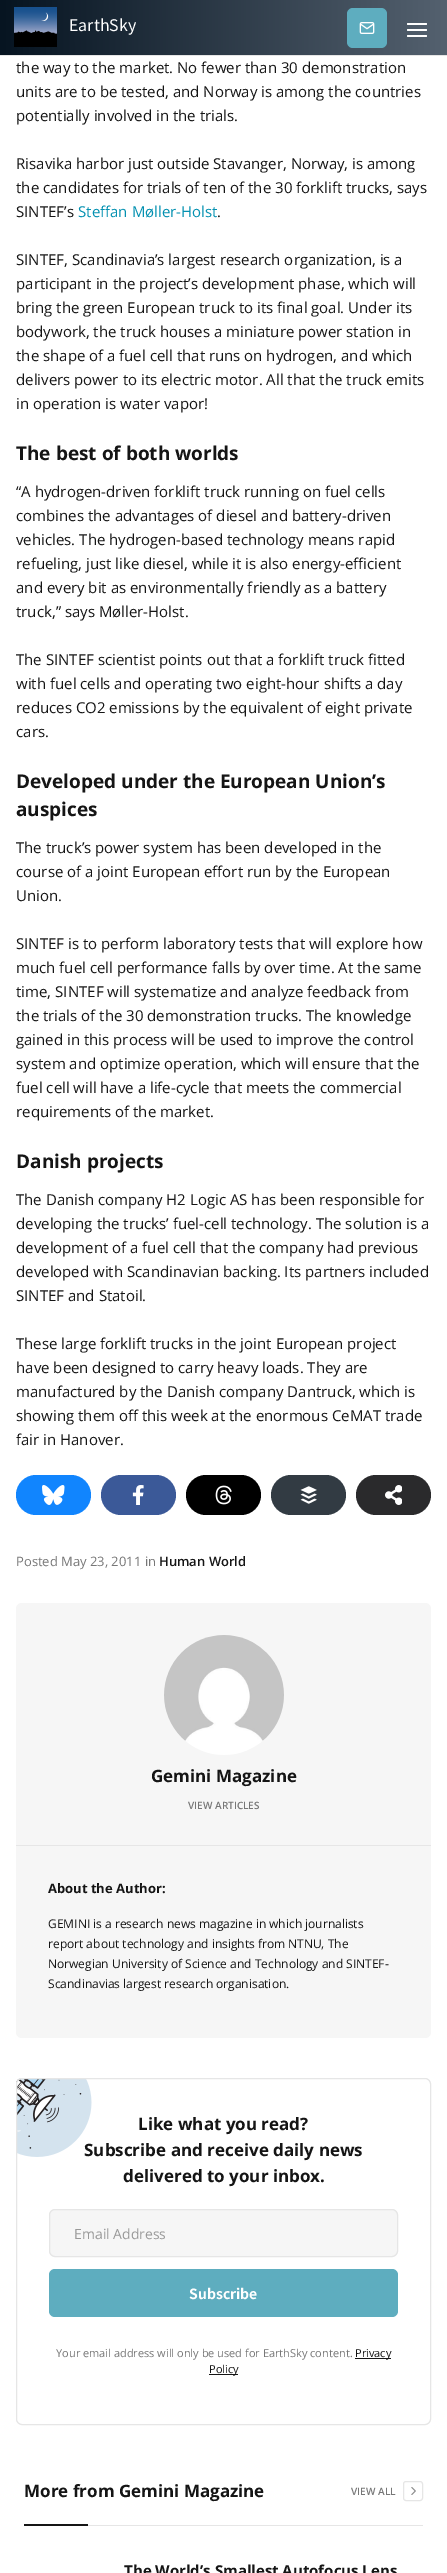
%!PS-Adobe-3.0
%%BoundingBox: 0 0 447 2573
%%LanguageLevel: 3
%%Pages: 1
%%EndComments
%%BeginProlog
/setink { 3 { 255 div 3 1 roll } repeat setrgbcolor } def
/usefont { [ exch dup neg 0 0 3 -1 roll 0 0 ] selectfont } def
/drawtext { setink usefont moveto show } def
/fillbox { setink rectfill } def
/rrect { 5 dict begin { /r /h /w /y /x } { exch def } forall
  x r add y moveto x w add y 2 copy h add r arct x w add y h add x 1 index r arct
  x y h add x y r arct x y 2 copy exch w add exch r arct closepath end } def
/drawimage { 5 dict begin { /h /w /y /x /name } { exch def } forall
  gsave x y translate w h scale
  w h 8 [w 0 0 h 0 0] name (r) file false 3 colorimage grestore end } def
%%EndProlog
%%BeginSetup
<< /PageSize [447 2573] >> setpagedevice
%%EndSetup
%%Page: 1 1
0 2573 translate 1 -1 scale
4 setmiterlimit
0 0 447 2573 255 255 255 fillbox
0 55 447 1 229 229 229 fillbox
gsave 0 0 moveto 447 0 lineto 447 55 lineto 0 55 lineto closepath clip newpath
<< /ShadingType 2 /ColorSpace /DeviceRGB /Coords [447 27 0 28] /Extend [true true] /Function << /FunctionType 2 /Domain [0 1] /C0 [0.329 0.38 0.435] /C1 [0.024 0.078 0.129] /N 1 >> >> shfill grestore
(assets/img1.rgb) 14 7 43 40 drawimage
(EarthSky) 69 31 /NotoSansHK-Regular 16 255 255 255 drawtext
94 173 191 setink
347 8 40 40 6 rrect fill
(assets/img2.rgb) 359 22 16 12 drawimage
255 255 255 setink
407 23 20 2 1 rrect fill
407 29 20 2 1 rrect fill
407 35 20 2 1 rrect fill
(the way to the market. No fewer than 30 demonstration) 16 73 /OpenSans-Regular 15 21 21 21 drawtext
(units are to be tested, and Norway is among the countries) 16 97 /OpenSans-Regular 15 21 21 21 drawtext
(potentially involved in the trials.) 16 121 /OpenSans-Regular 15 21 21 21 drawtext
(Risavika harbor just outside Stavanger, Norway, is among) 16 169 /OpenSans-Regular 15 21 21 21 drawtext
(the candidates for trials of ten of the 30 forklift trucks, says) 16 193 /OpenSans-Regular 15 21 21 21 drawtext
(SINTEF’s) 16 217 /OpenSans-Regular 15 21 21 21 drawtext
(Steffan Møller-Holst) 78 217 /OpenSans-Regular 15 4 145 177 drawtext
(.) 217 217 /OpenSans-Regular 15 21 21 21 drawtext
(SINTEF, Scandinavia’s largest research organization, is a) 16 265 /OpenSans-Regular 15 21 21 21 drawtext
(participant in the project’s development phase, which will) 16 289 /OpenSans-Regular 15 21 21 21 drawtext
(bring the green European truck to its final goal. Under its) 16 313 /OpenSans-Regular 15 21 21 21 drawtext
(bodywork, the truck houses a miniature power station in) 16 337 /OpenSans-Regular 15 21 21 21 drawtext
(the shape of a fuel cell that runs on hydrogen, and which) 16 361 /OpenSans-Regular 15 21 21 21 drawtext
(delivers power to its electric motor. All that the truck emits) 16 385 /OpenSans-Regular 15 21 21 21 drawtext
(in operation is water vapor!) 16 409 /OpenSans-Regular 15 21 21 21 drawtext
(The best of both worlds) 16 460 /OpenSans-Bold 19 21 21 21 drawtext
(“A hydrogen-driven forklift truck running on fuel cells) 16 497 /OpenSans-Regular 15 21 21 21 drawtext
(combines the advantages of diesel and battery-driven) 16 521 /OpenSans-Regular 15 21 21 21 drawtext
(vehicles. The hydrogen-based technology means rapid) 16 545 /OpenSans-Regular 15 21 21 21 drawtext
(refueling, just like diesel, while it is also energy-efficient) 16 569 /OpenSans-Regular 15 21 21 21 drawtext
(and every bit as environmentally friendly as a battery) 16 593 /OpenSans-Regular 15 21 21 21 drawtext
(truck,” says Møller-Holst.) 16 617 /OpenSans-Regular 15 21 21 21 drawtext
(The SINTEF scientist points out that a forklift truck fitted) 16 665 /OpenSans-Regular 15 21 21 21 drawtext
(with fuel cells and operating two eight-hour shifts a day) 16 689 /OpenSans-Regular 15 21 21 21 drawtext
(reduces CO2 emissions by the equivalent of eight private) 16 713 /OpenSans-Regular 15 21 21 21 drawtext
(cars.) 16 737 /OpenSans-Regular 15 21 21 21 drawtext
(Developed under the European Union’s) 16 788 /OpenSans-Bold 19 21 21 21 drawtext
(auspices) 16 816 /OpenSans-Bold 19 21 21 21 drawtext
(The truck’s power system has been developed in the) 16 853 /OpenSans-Regular 15 21 21 21 drawtext
(course of a joint European effort run by the European) 16 877 /OpenSans-Regular 15 21 21 21 drawtext
(Union.) 16 901 /OpenSans-Regular 15 21 21 21 drawtext
(SINTEF is to perform laboratory tests that will explore how) 16 949 /OpenSans-Regular 15 21 21 21 drawtext
(much fuel cell performance falls by over time. At the same) 16 973 /OpenSans-Regular 15 21 21 21 drawtext
(time, SINTEF will systematize and analyze feedback from) 16 997 /OpenSans-Regular 15 21 21 21 drawtext
(the trials of the 30 demonstration trucks. The knowledge) 16 1021 /OpenSans-Regular 15 21 21 21 drawtext
(gained in this process will be used to improve the control) 16 1045 /OpenSans-Regular 15 21 21 21 drawtext
(system and optimize operation, which will ensure that the) 16 1069 /OpenSans-Regular 15 21 21 21 drawtext
(fuel cell will have a life-cycle that meets the commercial) 16 1093 /OpenSans-Regular 15 21 21 21 drawtext
(requirements of the market.) 16 1117 /OpenSans-Regular 15 21 21 21 drawtext
(Danish projects) 16 1168 /OpenSans-Bold 19 21 21 21 drawtext
(The Danish company H2 Logic AS has been responsible for) 16 1205 /OpenSans-Regular 15 21 21 21 drawtext
(developing the trucks’ fuel-cell technology. The solution is a) 16 1229 /OpenSans-Regular 15 21 21 21 drawtext
(development of a fuel cell that the company had previous) 16 1253 /OpenSans-Regular 15 21 21 21 drawtext
(developed with Scandinavian backing. Its partners included) 16 1277 /OpenSans-Regular 15 21 21 21 drawtext
(SINTEF and Statoil.) 16 1301 /OpenSans-Regular 15 21 21 21 drawtext
(These large forklift trucks in the joint European project) 16 1349 /OpenSans-Regular 15 21 21 21 drawtext
(have been designed to carry heavy loads. They are) 16 1373 /OpenSans-Regular 15 21 21 21 drawtext
(manufactured by the Danish company Dantruck, which is) 16 1397 /OpenSans-Regular 15 21 21 21 drawtext
(showing them off this week at the enormous CeMAT trade) 16 1421 /OpenSans-Regular 15 21 21 21 drawtext
(fair in Hanover.) 16 1445 /OpenSans-Regular 15 21 21 21 drawtext
17 133 254 setink
16 1475 75 40 20 rrect fill
(assets/img3.rgb) 42 1485 23 20 drawimage
59 89 152 setink
101 1475 75 40 20 rrect fill
(assets/img4.rgb) 132 1485 12 20 drawimage
0 0 0 setink
186 1475 75 40 20 rrect fill
(assets/img5.rgb) 215 1485 17 20 drawimage
50 59 67 setink
271 1475 75 40 20 rrect fill
(assets/img6.rgb) 300 1486 17 18 drawimage
42 42 44 setink
356 1475 75 40 20 rrect fill
(assets/img7.rgb) 385 1485 17 20 drawimage
(Posted May 23, 2011 in) 16 1566 /OpenSans-Regular 13 119 119 119 drawtext
(Human World) 159 1566 /OpenSans-SemiBold 13 21 21 21 drawtext
246 246 246 setink
16 1603 415 435 6 rrect fill
16 1845 415 1 230 230 230 fillbox
(assets/img8.rgb) 164 1635 120 120 drawimage
(Gemini Magazine) 151 1782 /OpenSans-Bold 17 21 21 21 drawtext
(VIEW ARTICLES) 188 1809 /OpenSans-SemiBold 10 119 119 119 drawtext
(About the Author:) 48 1893 /OpenSans-Bold 13 21 21 21 drawtext
(GEMINI is a research news magazine in which journalists) 48 1928 /OpenSans-Regular 12 21 21 21 drawtext
(report about technology and insights from NTNU, The) 48 1948 /OpenSans-Regular 12 21 21 21 drawtext
(Norwegian University of Science and Technology and SINTEF-) 48 1968 /OpenSans-Regular 12 21 21 21 drawtext
(Scandinavias largest research organisation.) 48 1988 /OpenSans-Regular 12 21 21 21 drawtext
(assets/img9.rgb) 16 2078 76 79 drawimage
230 230 230 setink
16.5 2078.5 414 346 5.5 rrect stroke
(Like what you read?) 138 2130 /OpenSans-Bold 17 21 21 21 drawtext
(Subscribe and receive daily news) 84 2156 /OpenSans-Bold 17 21 21 21 drawtext
(delivered to your inbox.) 123 2182 /OpenSans-Bold 17 21 21 21 drawtext
246 246 246 setink
49.5 2209.5 348 47 5.5 rrect gsave fill grestore
230 230 230 setink
stroke
(Email Address) 74 2239 /OpenSans-Regular 14 153 153 153 drawtext
94 173 191 setink
49 2269 349 48 6 rrect fill
(Subscribe) 189 2299 /NotoSansHK-Bold 14 255 255 255 drawtext
(Your email address will only be used for EarthSky content.) 56 2357 /OpenSans-Regular 11 119 119 119 drawtext
355 2358 36 1 21 21 21 fillbox
(Privacy) 355 2357 /OpenSans-Regular 11 21 21 21 drawtext
209 2374 29 1 21 21 21 fillbox
(Policy) 209 2373 /OpenSans-Regular 11 21 21 21 drawtext
88 2525 335 1 230 230 230 fillbox
(More from Gemini Magazine) 24 2497 /OpenSans-Bold 17 21 21 21 drawtext
(VIEW ALL) 351 2495 /OpenSans-SemiBold 10 119 119 119 drawtext
230 230 230 setink
403.5 2481.5 19 19 2.5 rrect stroke
(assets/img10.rgb) 411 2487 5 8 drawimage
24 2524 64 2 21 21 21 fillbox
(The World’s Smallest Autofocus Lens) 124 2576 /OpenSans-Bold 15 21 21 21 drawtext
showpage
%%EOF
